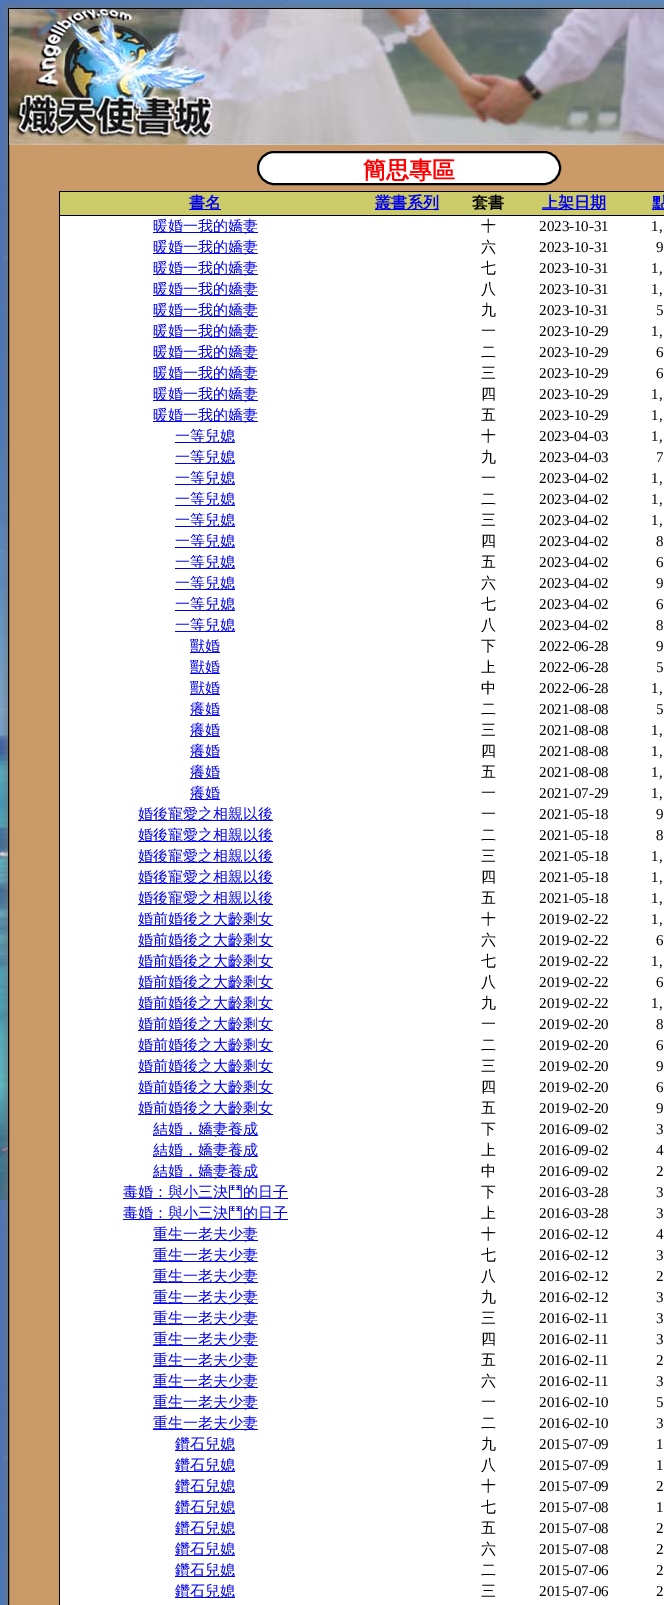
%!PS-Adobe-3.0
%%BoundingBox: 0 0 664 1605
%%LanguageLevel: 3
%%Pages: 1
%%EndComments
%%BeginProlog
/setink { 3 { 255 div 3 1 roll } repeat setrgbcolor } def
/usefont { [ exch dup neg 0 0 3 -1 roll 0 0 ] selectfont } def
/drawtext { setink usefont moveto show } def
/fillbox { setink rectfill } def
/setalpha { dup .setfillconstantalpha .setstrokeconstantalpha } def
/rrect { 5 dict begin { /r /h /w /y /x } { exch def } forall
  x r add y moveto x w add y 2 copy h add r arct x w add y h add x 1 index r arct
  x y h add x y r arct x y 2 copy exch w add exch r arct closepath end } def
/softshadow { 12 dict begin { /a /b /q /h /w /y /x } { exch def } forall gsave /was 0 def
  9 -2 -9 { dup b mul 4 div /e exch def 1 sub .425 mul 2.718 exch exp 1 add a .99 .min exch div /now exch def
    1 1 now sub 1 was sub div sub setalpha /was now def
    w h .min e 2 mul add 0 gt { x e sub y e sub w e 2 mul add h e 2 mul add
      q e add b .6 mul add w h .min 2 div e add .min 0 .max rrect fill } if } for grestore end } def
/drawimage { 5 dict begin { /h /w /y /x /name } { exch def } forall
  gsave x y translate w h scale
  w h 8 [w 0 0 h 0 0] name (r) file false 3 colorimage grestore end } def
%%EndProlog
%%BeginSetup
<< /PageSize [664 1605] /PageUsesTransparency true >> setpagedevice
%%EndSetup
%%Page: 1 1
0 .pushpdf14devicefilter
0 1605 translate 1 -1 scale
4 setmiterlimit
0 0 664 1605 255 255 255 fillbox
(assets/img1.rgb) 0 0 664 1605 drawimage
119 119 119 setink
4 4 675 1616 0 5 0.75 softshadow
9 145 655 1460 203 154 105 fillbox
0 0 0 setink
8.5 8.5 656 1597 rectstroke
(assets/img2.rgb) 9 9 655 136 drawimage
255 255 255 setink
258 152 302 32 16 rrect gsave fill grestore
0 0 0 setink
2 setlinewidth
stroke
(簡思專區) 363 178 /WenQuanYiZenHei-Bold 23 255 0 0 drawtext
60 216 604 1389 255 255 255 fillbox
59 191 605 1 0 0 0 fillbox
59 191 1 1414 0 0 0 fillbox
60 192 604 23 203 203 105 fillbox
189 209 32 1 0 0 238 fillbox
(書名) 189 208 /WenQuanYiZenHei-Bold 16 0 0 238 drawtext
375 209 64 1 0 0 238 fillbox
(叢書系列) 375 208 /WenQuanYiZenHei-Bold 16 0 0 238 drawtext
(套書) 472 208 /WenQuanYiZenHei-Bold 16 0 0 0 drawtext
542 209 64 1 0 0 238 fillbox
(上架日期) 542 208 /WenQuanYiZenHei-Bold 16 0 0 238 drawtext
59 215 605 1 0 0 0 fillbox
652 209 12 1 0 0 238 fillbox
(點) 652 208 /WenQuanYiZenHei-Bold 16 0 0 238 drawtext
153 232 105 1 0 0 238 fillbox
(暖婚一我的嬌妻) 153 231 /WenQuanYiZenHei-Medium 15 0 0 238 drawtext
(十) 481 231 /WenQuanYiZenHei-Medium 15 0 0 0 drawtext
(2023-10-31) 539 231 /LiberationSerif-Regular 15 0 0 0 drawtext
(1,) 651 231 /LiberationSerif-Regular 15 0 0 0 drawtext
153 253 105 1 0 0 238 fillbox
(暖婚一我的嬌妻) 153 252 /WenQuanYiZenHei-Medium 15 0 0 238 drawtext
(六) 481 252 /WenQuanYiZenHei-Medium 15 0 0 0 drawtext
(2023-10-31) 539 252 /LiberationSerif-Regular 15 0 0 0 drawtext
(9) 656 252 /LiberationSerif-Regular 15 0 0 0 drawtext
153 274 105 1 0 0 238 fillbox
(暖婚一我的嬌妻) 153 273 /WenQuanYiZenHei-Medium 15 0 0 238 drawtext
(七) 481 273 /WenQuanYiZenHei-Medium 15 0 0 0 drawtext
(2023-10-31) 539 273 /LiberationSerif-Regular 15 0 0 0 drawtext
(1,) 651 273 /LiberationSerif-Regular 15 0 0 0 drawtext
153 295 105 1 0 0 238 fillbox
(暖婚一我的嬌妻) 153 294 /WenQuanYiZenHei-Medium 15 0 0 238 drawtext
(八) 481 294 /WenQuanYiZenHei-Medium 15 0 0 0 drawtext
(2023-10-31) 539 294 /LiberationSerif-Regular 15 0 0 0 drawtext
(1,) 651 294 /LiberationSerif-Regular 15 0 0 0 drawtext
153 316 105 1 0 0 238 fillbox
(暖婚一我的嬌妻) 153 315 /WenQuanYiZenHei-Medium 15 0 0 238 drawtext
(九) 481 315 /WenQuanYiZenHei-Medium 15 0 0 0 drawtext
(2023-10-31) 539 315 /LiberationSerif-Regular 15 0 0 0 drawtext
(5) 656 315 /LiberationSerif-Regular 15 0 0 0 drawtext
153 337 105 1 0 0 238 fillbox
(暖婚一我的嬌妻) 153 336 /WenQuanYiZenHei-Medium 15 0 0 238 drawtext
(一) 481 336 /WenQuanYiZenHei-Medium 15 0 0 0 drawtext
(2023-10-29) 539 336 /LiberationSerif-Regular 15 0 0 0 drawtext
(1,) 651 336 /LiberationSerif-Regular 15 0 0 0 drawtext
153 358 105 1 0 0 238 fillbox
(暖婚一我的嬌妻) 153 357 /WenQuanYiZenHei-Medium 15 0 0 238 drawtext
(二) 481 357 /WenQuanYiZenHei-Medium 15 0 0 0 drawtext
(2023-10-29) 539 357 /LiberationSerif-Regular 15 0 0 0 drawtext
(6) 656 357 /LiberationSerif-Regular 15 0 0 0 drawtext
153 379 105 1 0 0 238 fillbox
(暖婚一我的嬌妻) 153 378 /WenQuanYiZenHei-Medium 15 0 0 238 drawtext
(三) 481 378 /WenQuanYiZenHei-Medium 15 0 0 0 drawtext
(2023-10-29) 539 378 /LiberationSerif-Regular 15 0 0 0 drawtext
(6) 656 378 /LiberationSerif-Regular 15 0 0 0 drawtext
153 400 105 1 0 0 238 fillbox
(暖婚一我的嬌妻) 153 399 /WenQuanYiZenHei-Medium 15 0 0 238 drawtext
(四) 481 399 /WenQuanYiZenHei-Medium 15 0 0 0 drawtext
(2023-10-29) 539 399 /LiberationSerif-Regular 15 0 0 0 drawtext
(1,) 651 399 /LiberationSerif-Regular 15 0 0 0 drawtext
153 421 105 1 0 0 238 fillbox
(暖婚一我的嬌妻) 153 420 /WenQuanYiZenHei-Medium 15 0 0 238 drawtext
(五) 481 420 /WenQuanYiZenHei-Medium 15 0 0 0 drawtext
(2023-10-29) 539 420 /LiberationSerif-Regular 15 0 0 0 drawtext
(1,) 651 420 /LiberationSerif-Regular 15 0 0 0 drawtext
175 442 60 1 0 0 238 fillbox
(一等兒媳) 175 441 /WenQuanYiZenHei-Medium 15 0 0 238 drawtext
(十) 481 441 /WenQuanYiZenHei-Medium 15 0 0 0 drawtext
(2023-04-03) 539 441 /LiberationSerif-Regular 15 0 0 0 drawtext
(1,) 651 441 /LiberationSerif-Regular 15 0 0 0 drawtext
175 463 60 1 0 0 238 fillbox
(一等兒媳) 175 462 /WenQuanYiZenHei-Medium 15 0 0 238 drawtext
(九) 481 462 /WenQuanYiZenHei-Medium 15 0 0 0 drawtext
(2023-04-03) 539 462 /LiberationSerif-Regular 15 0 0 0 drawtext
(7) 656 462 /LiberationSerif-Regular 15 0 0 0 drawtext
175 484 60 1 0 0 238 fillbox
(一等兒媳) 175 483 /WenQuanYiZenHei-Medium 15 0 0 238 drawtext
(一) 481 483 /WenQuanYiZenHei-Medium 15 0 0 0 drawtext
(2023-04-02) 539 483 /LiberationSerif-Regular 15 0 0 0 drawtext
(1,) 651 483 /LiberationSerif-Regular 15 0 0 0 drawtext
175 505 60 1 0 0 238 fillbox
(一等兒媳) 175 504 /WenQuanYiZenHei-Medium 15 0 0 238 drawtext
(二) 481 504 /WenQuanYiZenHei-Medium 15 0 0 0 drawtext
(2023-04-02) 539 504 /LiberationSerif-Regular 15 0 0 0 drawtext
(1,) 651 504 /LiberationSerif-Regular 15 0 0 0 drawtext
175 526 60 1 0 0 238 fillbox
(一等兒媳) 175 525 /WenQuanYiZenHei-Medium 15 0 0 238 drawtext
(三) 481 525 /WenQuanYiZenHei-Medium 15 0 0 0 drawtext
(2023-04-02) 539 525 /LiberationSerif-Regular 15 0 0 0 drawtext
(1,) 651 525 /LiberationSerif-Regular 15 0 0 0 drawtext
175 547 60 1 0 0 238 fillbox
(一等兒媳) 175 546 /WenQuanYiZenHei-Medium 15 0 0 238 drawtext
(四) 481 546 /WenQuanYiZenHei-Medium 15 0 0 0 drawtext
(2023-04-02) 539 546 /LiberationSerif-Regular 15 0 0 0 drawtext
(8) 656 546 /LiberationSerif-Regular 15 0 0 0 drawtext
175 568 60 1 0 0 238 fillbox
(一等兒媳) 175 567 /WenQuanYiZenHei-Medium 15 0 0 238 drawtext
(五) 481 567 /WenQuanYiZenHei-Medium 15 0 0 0 drawtext
(2023-04-02) 539 567 /LiberationSerif-Regular 15 0 0 0 drawtext
(6) 656 567 /LiberationSerif-Regular 15 0 0 0 drawtext
175 589 60 1 0 0 238 fillbox
(一等兒媳) 175 588 /WenQuanYiZenHei-Medium 15 0 0 238 drawtext
(六) 481 588 /WenQuanYiZenHei-Medium 15 0 0 0 drawtext
(2023-04-02) 539 588 /LiberationSerif-Regular 15 0 0 0 drawtext
(9) 656 588 /LiberationSerif-Regular 15 0 0 0 drawtext
175 610 60 1 0 0 238 fillbox
(一等兒媳) 175 609 /WenQuanYiZenHei-Medium 15 0 0 238 drawtext
(七) 481 609 /WenQuanYiZenHei-Medium 15 0 0 0 drawtext
(2023-04-02) 539 609 /LiberationSerif-Regular 15 0 0 0 drawtext
(6) 656 609 /LiberationSerif-Regular 15 0 0 0 drawtext
175 631 60 1 0 0 238 fillbox
(一等兒媳) 175 630 /WenQuanYiZenHei-Medium 15 0 0 238 drawtext
(八) 481 630 /WenQuanYiZenHei-Medium 15 0 0 0 drawtext
(2023-04-02) 539 630 /LiberationSerif-Regular 15 0 0 0 drawtext
(8) 656 630 /LiberationSerif-Regular 15 0 0 0 drawtext
190 652 30 1 0 0 238 fillbox
(獸婚) 190 651 /WenQuanYiZenHei-Medium 15 0 0 238 drawtext
(下) 481 651 /WenQuanYiZenHei-Medium 15 0 0 0 drawtext
(2022-06-28) 539 651 /LiberationSerif-Regular 15 0 0 0 drawtext
(9) 656 651 /LiberationSerif-Regular 15 0 0 0 drawtext
190 673 30 1 0 0 238 fillbox
(獸婚) 190 672 /WenQuanYiZenHei-Medium 15 0 0 238 drawtext
(上) 481 672 /WenQuanYiZenHei-Medium 15 0 0 0 drawtext
(2022-06-28) 539 672 /LiberationSerif-Regular 15 0 0 0 drawtext
(5) 656 672 /LiberationSerif-Regular 15 0 0 0 drawtext
190 694 30 1 0 0 238 fillbox
(獸婚) 190 693 /WenQuanYiZenHei-Medium 15 0 0 238 drawtext
(中) 481 693 /WenQuanYiZenHei-Medium 15 0 0 0 drawtext
(2022-06-28) 539 693 /LiberationSerif-Regular 15 0 0 0 drawtext
(1,) 651 693 /LiberationSerif-Regular 15 0 0 0 drawtext
190 715 30 1 0 0 238 fillbox
(癢婚) 190 714 /WenQuanYiZenHei-Medium 15 0 0 238 drawtext
(二) 481 714 /WenQuanYiZenHei-Medium 15 0 0 0 drawtext
(2021-08-08) 539 714 /LiberationSerif-Regular 15 0 0 0 drawtext
(5) 656 714 /LiberationSerif-Regular 15 0 0 0 drawtext
190 736 30 1 0 0 238 fillbox
(癢婚) 190 735 /WenQuanYiZenHei-Medium 15 0 0 238 drawtext
(三) 481 735 /WenQuanYiZenHei-Medium 15 0 0 0 drawtext
(2021-08-08) 539 735 /LiberationSerif-Regular 15 0 0 0 drawtext
(1,) 651 735 /LiberationSerif-Regular 15 0 0 0 drawtext
190 757 30 1 0 0 238 fillbox
(癢婚) 190 756 /WenQuanYiZenHei-Medium 15 0 0 238 drawtext
(四) 481 756 /WenQuanYiZenHei-Medium 15 0 0 0 drawtext
(2021-08-08) 539 756 /LiberationSerif-Regular 15 0 0 0 drawtext
(1,) 651 756 /LiberationSerif-Regular 15 0 0 0 drawtext
190 778 30 1 0 0 238 fillbox
(癢婚) 190 777 /WenQuanYiZenHei-Medium 15 0 0 238 drawtext
(五) 481 777 /WenQuanYiZenHei-Medium 15 0 0 0 drawtext
(2021-08-08) 539 777 /LiberationSerif-Regular 15 0 0 0 drawtext
(1,) 651 777 /LiberationSerif-Regular 15 0 0 0 drawtext
190 799 30 1 0 0 238 fillbox
(癢婚) 190 798 /WenQuanYiZenHei-Medium 15 0 0 238 drawtext
(一) 481 798 /WenQuanYiZenHei-Medium 15 0 0 0 drawtext
(2021-07-29) 539 798 /LiberationSerif-Regular 15 0 0 0 drawtext
(1,) 651 798 /LiberationSerif-Regular 15 0 0 0 drawtext
138 820 135 1 0 0 238 fillbox
(婚後寵愛之相親以後) 138 819 /WenQuanYiZenHei-Medium 15 0 0 238 drawtext
(一) 481 819 /WenQuanYiZenHei-Medium 15 0 0 0 drawtext
(2021-05-18) 539 819 /LiberationSerif-Regular 15 0 0 0 drawtext
(9) 656 819 /LiberationSerif-Regular 15 0 0 0 drawtext
138 841 135 1 0 0 238 fillbox
(婚後寵愛之相親以後) 138 840 /WenQuanYiZenHei-Medium 15 0 0 238 drawtext
(二) 481 840 /WenQuanYiZenHei-Medium 15 0 0 0 drawtext
(2021-05-18) 539 840 /LiberationSerif-Regular 15 0 0 0 drawtext
(8) 656 840 /LiberationSerif-Regular 15 0 0 0 drawtext
138 862 135 1 0 0 238 fillbox
(婚後寵愛之相親以後) 138 861 /WenQuanYiZenHei-Medium 15 0 0 238 drawtext
(三) 481 861 /WenQuanYiZenHei-Medium 15 0 0 0 drawtext
(2021-05-18) 539 861 /LiberationSerif-Regular 15 0 0 0 drawtext
(1,) 651 861 /LiberationSerif-Regular 15 0 0 0 drawtext
138 883 135 1 0 0 238 fillbox
(婚後寵愛之相親以後) 138 882 /WenQuanYiZenHei-Medium 15 0 0 238 drawtext
(四) 481 882 /WenQuanYiZenHei-Medium 15 0 0 0 drawtext
(2021-05-18) 539 882 /LiberationSerif-Regular 15 0 0 0 drawtext
(1,) 651 882 /LiberationSerif-Regular 15 0 0 0 drawtext
138 904 135 1 0 0 238 fillbox
(婚後寵愛之相親以後) 138 903 /WenQuanYiZenHei-Medium 15 0 0 238 drawtext
(五) 481 903 /WenQuanYiZenHei-Medium 15 0 0 0 drawtext
(2021-05-18) 539 903 /LiberationSerif-Regular 15 0 0 0 drawtext
(1,) 651 903 /LiberationSerif-Regular 15 0 0 0 drawtext
138 925 135 1 0 0 238 fillbox
(婚前婚後之大齡剩女) 138 924 /WenQuanYiZenHei-Medium 15 0 0 238 drawtext
(十) 481 924 /WenQuanYiZenHei-Medium 15 0 0 0 drawtext
(2019-02-22) 539 924 /LiberationSerif-Regular 15 0 0 0 drawtext
(1,) 651 924 /LiberationSerif-Regular 15 0 0 0 drawtext
138 946 135 1 0 0 238 fillbox
(婚前婚後之大齡剩女) 138 945 /WenQuanYiZenHei-Medium 15 0 0 238 drawtext
(六) 481 945 /WenQuanYiZenHei-Medium 15 0 0 0 drawtext
(2019-02-22) 539 945 /LiberationSerif-Regular 15 0 0 0 drawtext
(6) 656 945 /LiberationSerif-Regular 15 0 0 0 drawtext
138 967 135 1 0 0 238 fillbox
(婚前婚後之大齡剩女) 138 966 /WenQuanYiZenHei-Medium 15 0 0 238 drawtext
(七) 481 966 /WenQuanYiZenHei-Medium 15 0 0 0 drawtext
(2019-02-22) 539 966 /LiberationSerif-Regular 15 0 0 0 drawtext
(1,) 651 966 /LiberationSerif-Regular 15 0 0 0 drawtext
138 988 135 1 0 0 238 fillbox
(婚前婚後之大齡剩女) 138 987 /WenQuanYiZenHei-Medium 15 0 0 238 drawtext
(八) 481 987 /WenQuanYiZenHei-Medium 15 0 0 0 drawtext
(2019-02-22) 539 987 /LiberationSerif-Regular 15 0 0 0 drawtext
(6) 656 987 /LiberationSerif-Regular 15 0 0 0 drawtext
138 1009 135 1 0 0 238 fillbox
(婚前婚後之大齡剩女) 138 1008 /WenQuanYiZenHei-Medium 15 0 0 238 drawtext
(九) 481 1008 /WenQuanYiZenHei-Medium 15 0 0 0 drawtext
(2019-02-22) 539 1008 /LiberationSerif-Regular 15 0 0 0 drawtext
(1,) 651 1008 /LiberationSerif-Regular 15 0 0 0 drawtext
138 1030 135 1 0 0 238 fillbox
(婚前婚後之大齡剩女) 138 1029 /WenQuanYiZenHei-Medium 15 0 0 238 drawtext
(一) 481 1029 /WenQuanYiZenHei-Medium 15 0 0 0 drawtext
(2019-02-20) 539 1029 /LiberationSerif-Regular 15 0 0 0 drawtext
(8) 656 1029 /LiberationSerif-Regular 15 0 0 0 drawtext
138 1051 135 1 0 0 238 fillbox
(婚前婚後之大齡剩女) 138 1050 /WenQuanYiZenHei-Medium 15 0 0 238 drawtext
(二) 481 1050 /WenQuanYiZenHei-Medium 15 0 0 0 drawtext
(2019-02-20) 539 1050 /LiberationSerif-Regular 15 0 0 0 drawtext
(6) 656 1050 /LiberationSerif-Regular 15 0 0 0 drawtext
138 1072 135 1 0 0 238 fillbox
(婚前婚後之大齡剩女) 138 1071 /WenQuanYiZenHei-Medium 15 0 0 238 drawtext
(三) 481 1071 /WenQuanYiZenHei-Medium 15 0 0 0 drawtext
(2019-02-20) 539 1071 /LiberationSerif-Regular 15 0 0 0 drawtext
(9) 656 1071 /LiberationSerif-Regular 15 0 0 0 drawtext
138 1093 135 1 0 0 238 fillbox
(婚前婚後之大齡剩女) 138 1092 /WenQuanYiZenHei-Medium 15 0 0 238 drawtext
(四) 481 1092 /WenQuanYiZenHei-Medium 15 0 0 0 drawtext
(2019-02-20) 539 1092 /LiberationSerif-Regular 15 0 0 0 drawtext
(6) 656 1092 /LiberationSerif-Regular 15 0 0 0 drawtext
138 1114 135 1 0 0 238 fillbox
(婚前婚後之大齡剩女) 138 1113 /WenQuanYiZenHei-Medium 15 0 0 238 drawtext
(五) 481 1113 /WenQuanYiZenHei-Medium 15 0 0 0 drawtext
(2019-02-20) 539 1113 /LiberationSerif-Regular 15 0 0 0 drawtext
(9) 656 1113 /LiberationSerif-Regular 15 0 0 0 drawtext
153 1135 105 1 0 0 238 fillbox
(結婚，嬌妻養成) 153 1134 /WenQuanYiZenHei-Medium 15 0 0 238 drawtext
(下) 481 1134 /WenQuanYiZenHei-Medium 15 0 0 0 drawtext
(2016-09-02) 539 1134 /LiberationSerif-Regular 15 0 0 0 drawtext
(3) 656 1134 /LiberationSerif-Regular 15 0 0 0 drawtext
153 1156 105 1 0 0 238 fillbox
(結婚，嬌妻養成) 153 1155 /WenQuanYiZenHei-Medium 15 0 0 238 drawtext
(上) 481 1155 /WenQuanYiZenHei-Medium 15 0 0 0 drawtext
(2016-09-02) 539 1155 /LiberationSerif-Regular 15 0 0 0 drawtext
(4) 656 1155 /LiberationSerif-Regular 15 0 0 0 drawtext
153 1177 105 1 0 0 238 fillbox
(結婚，嬌妻養成) 153 1176 /WenQuanYiZenHei-Medium 15 0 0 238 drawtext
(中) 481 1176 /WenQuanYiZenHei-Medium 15 0 0 0 drawtext
(2016-09-02) 539 1176 /LiberationSerif-Regular 15 0 0 0 drawtext
(2) 656 1176 /LiberationSerif-Regular 15 0 0 0 drawtext
123 1198 165 1 0 0 238 fillbox
(毒婚：與小三決鬥的日子) 123 1197 /WenQuanYiZenHei-Medium 15 0 0 238 drawtext
(下) 481 1197 /WenQuanYiZenHei-Medium 15 0 0 0 drawtext
(2016-03-28) 539 1197 /LiberationSerif-Regular 15 0 0 0 drawtext
(3) 656 1197 /LiberationSerif-Regular 15 0 0 0 drawtext
123 1219 165 1 0 0 238 fillbox
(毒婚：與小三決鬥的日子) 123 1218 /WenQuanYiZenHei-Medium 15 0 0 238 drawtext
(上) 481 1218 /WenQuanYiZenHei-Medium 15 0 0 0 drawtext
(2016-03-28) 539 1218 /LiberationSerif-Regular 15 0 0 0 drawtext
(3) 656 1218 /LiberationSerif-Regular 15 0 0 0 drawtext
153 1240 105 1 0 0 238 fillbox
(重生一老夫少妻) 153 1239 /WenQuanYiZenHei-Medium 15 0 0 238 drawtext
(十) 481 1239 /WenQuanYiZenHei-Medium 15 0 0 0 drawtext
(2016-02-12) 539 1239 /LiberationSerif-Regular 15 0 0 0 drawtext
(4) 656 1239 /LiberationSerif-Regular 15 0 0 0 drawtext
153 1261 105 1 0 0 238 fillbox
(重生一老夫少妻) 153 1260 /WenQuanYiZenHei-Medium 15 0 0 238 drawtext
(七) 481 1260 /WenQuanYiZenHei-Medium 15 0 0 0 drawtext
(2016-02-12) 539 1260 /LiberationSerif-Regular 15 0 0 0 drawtext
(3) 656 1260 /LiberationSerif-Regular 15 0 0 0 drawtext
153 1282 105 1 0 0 238 fillbox
(重生一老夫少妻) 153 1281 /WenQuanYiZenHei-Medium 15 0 0 238 drawtext
(八) 481 1281 /WenQuanYiZenHei-Medium 15 0 0 0 drawtext
(2016-02-12) 539 1281 /LiberationSerif-Regular 15 0 0 0 drawtext
(2) 656 1281 /LiberationSerif-Regular 15 0 0 0 drawtext
153 1303 105 1 0 0 238 fillbox
(重生一老夫少妻) 153 1302 /WenQuanYiZenHei-Medium 15 0 0 238 drawtext
(九) 481 1302 /WenQuanYiZenHei-Medium 15 0 0 0 drawtext
(2016-02-12) 539 1302 /LiberationSerif-Regular 15 0 0 0 drawtext
(3) 656 1302 /LiberationSerif-Regular 15 0 0 0 drawtext
153 1324 105 1 0 0 238 fillbox
(重生一老夫少妻) 153 1323 /WenQuanYiZenHei-Medium 15 0 0 238 drawtext
(三) 481 1323 /WenQuanYiZenHei-Medium 15 0 0 0 drawtext
(2016-02-11) 539 1323 /LiberationSerif-Regular 15 0 0 0 drawtext
(3) 656 1323 /LiberationSerif-Regular 15 0 0 0 drawtext
153 1345 105 1 0 0 238 fillbox
(重生一老夫少妻) 153 1344 /WenQuanYiZenHei-Medium 15 0 0 238 drawtext
(四) 481 1344 /WenQuanYiZenHei-Medium 15 0 0 0 drawtext
(2016-02-11) 539 1344 /LiberationSerif-Regular 15 0 0 0 drawtext
(3) 656 1344 /LiberationSerif-Regular 15 0 0 0 drawtext
153 1366 105 1 0 0 238 fillbox
(重生一老夫少妻) 153 1365 /WenQuanYiZenHei-Medium 15 0 0 238 drawtext
(五) 481 1365 /WenQuanYiZenHei-Medium 15 0 0 0 drawtext
(2016-02-11) 539 1365 /LiberationSerif-Regular 15 0 0 0 drawtext
(2) 656 1365 /LiberationSerif-Regular 15 0 0 0 drawtext
153 1387 105 1 0 0 238 fillbox
(重生一老夫少妻) 153 1386 /WenQuanYiZenHei-Medium 15 0 0 238 drawtext
(六) 481 1386 /WenQuanYiZenHei-Medium 15 0 0 0 drawtext
(2016-02-11) 539 1386 /LiberationSerif-Regular 15 0 0 0 drawtext
(3) 656 1386 /LiberationSerif-Regular 15 0 0 0 drawtext
153 1408 105 1 0 0 238 fillbox
(重生一老夫少妻) 153 1407 /WenQuanYiZenHei-Medium 15 0 0 238 drawtext
(一) 481 1407 /WenQuanYiZenHei-Medium 15 0 0 0 drawtext
(2016-02-10) 539 1407 /LiberationSerif-Regular 15 0 0 0 drawtext
(5) 656 1407 /LiberationSerif-Regular 15 0 0 0 drawtext
153 1429 105 1 0 0 238 fillbox
(重生一老夫少妻) 153 1428 /WenQuanYiZenHei-Medium 15 0 0 238 drawtext
(二) 481 1428 /WenQuanYiZenHei-Medium 15 0 0 0 drawtext
(2016-02-10) 539 1428 /LiberationSerif-Regular 15 0 0 0 drawtext
(3) 656 1428 /LiberationSerif-Regular 15 0 0 0 drawtext
175 1450 60 1 0 0 238 fillbox
(鑽石兒媳) 175 1449 /WenQuanYiZenHei-Medium 15 0 0 238 drawtext
(九) 481 1449 /WenQuanYiZenHei-Medium 15 0 0 0 drawtext
(2015-07-09) 539 1449 /LiberationSerif-Regular 15 0 0 0 drawtext
(1) 656 1449 /LiberationSerif-Regular 15 0 0 0 drawtext
175 1471 60 1 0 0 238 fillbox
(鑽石兒媳) 175 1470 /WenQuanYiZenHei-Medium 15 0 0 238 drawtext
(八) 481 1470 /WenQuanYiZenHei-Medium 15 0 0 0 drawtext
(2015-07-09) 539 1470 /LiberationSerif-Regular 15 0 0 0 drawtext
(1) 656 1470 /LiberationSerif-Regular 15 0 0 0 drawtext
175 1492 60 1 0 0 238 fillbox
(鑽石兒媳) 175 1491 /WenQuanYiZenHei-Medium 15 0 0 238 drawtext
(十) 481 1491 /WenQuanYiZenHei-Medium 15 0 0 0 drawtext
(2015-07-09) 539 1491 /LiberationSerif-Regular 15 0 0 0 drawtext
(2) 656 1491 /LiberationSerif-Regular 15 0 0 0 drawtext
175 1513 60 1 0 0 238 fillbox
(鑽石兒媳) 175 1512 /WenQuanYiZenHei-Medium 15 0 0 238 drawtext
(七) 481 1512 /WenQuanYiZenHei-Medium 15 0 0 0 drawtext
(2015-07-08) 539 1512 /LiberationSerif-Regular 15 0 0 0 drawtext
(1) 656 1512 /LiberationSerif-Regular 15 0 0 0 drawtext
175 1534 60 1 0 0 238 fillbox
(鑽石兒媳) 175 1533 /WenQuanYiZenHei-Medium 15 0 0 238 drawtext
(五) 481 1533 /WenQuanYiZenHei-Medium 15 0 0 0 drawtext
(2015-07-08) 539 1533 /LiberationSerif-Regular 15 0 0 0 drawtext
(2) 656 1533 /LiberationSerif-Regular 15 0 0 0 drawtext
175 1555 60 1 0 0 238 fillbox
(鑽石兒媳) 175 1554 /WenQuanYiZenHei-Medium 15 0 0 238 drawtext
(六) 481 1554 /WenQuanYiZenHei-Medium 15 0 0 0 drawtext
(2015-07-08) 539 1554 /LiberationSerif-Regular 15 0 0 0 drawtext
(2) 656 1554 /LiberationSerif-Regular 15 0 0 0 drawtext
175 1576 60 1 0 0 238 fillbox
(鑽石兒媳) 175 1575 /WenQuanYiZenHei-Medium 15 0 0 238 drawtext
(二) 481 1575 /WenQuanYiZenHei-Medium 15 0 0 0 drawtext
(2015-07-06) 539 1575 /LiberationSerif-Regular 15 0 0 0 drawtext
(2) 656 1575 /LiberationSerif-Regular 15 0 0 0 drawtext
175 1597 60 1 0 0 238 fillbox
(鑽石兒媳) 175 1596 /WenQuanYiZenHei-Medium 15 0 0 238 drawtext
(三) 481 1596 /WenQuanYiZenHei-Medium 15 0 0 0 drawtext
(2015-07-06) 539 1596 /LiberationSerif-Regular 15 0 0 0 drawtext
(2) 656 1596 /LiberationSerif-Regular 15 0 0 0 drawtext
.poppdf14devicefilter showpage
%%EOF
